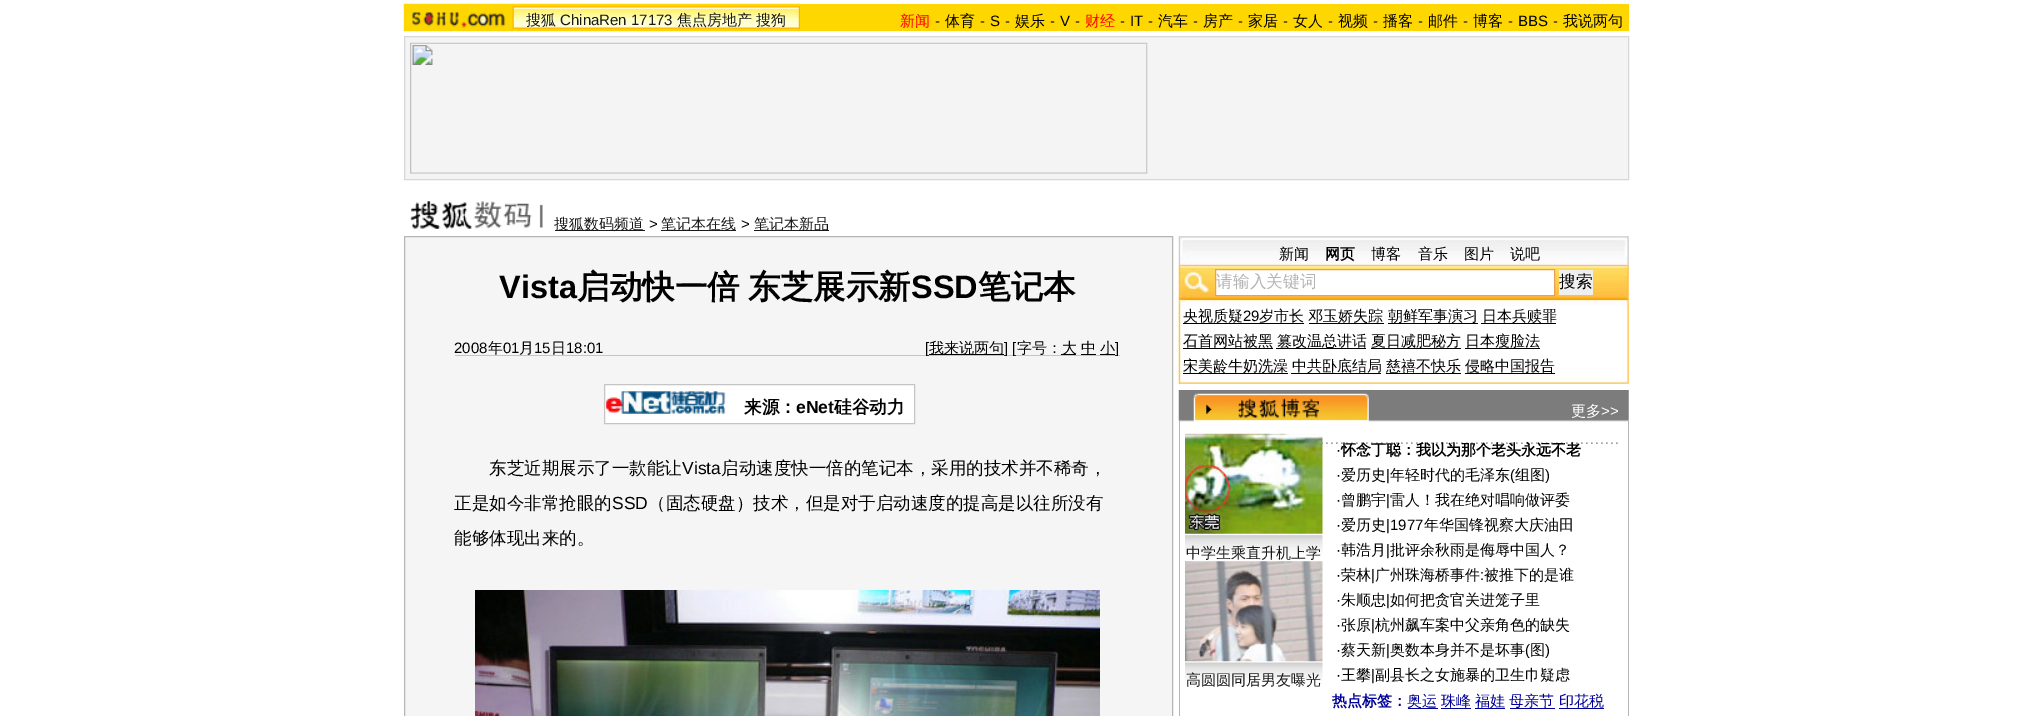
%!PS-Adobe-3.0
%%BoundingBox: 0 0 2031 716
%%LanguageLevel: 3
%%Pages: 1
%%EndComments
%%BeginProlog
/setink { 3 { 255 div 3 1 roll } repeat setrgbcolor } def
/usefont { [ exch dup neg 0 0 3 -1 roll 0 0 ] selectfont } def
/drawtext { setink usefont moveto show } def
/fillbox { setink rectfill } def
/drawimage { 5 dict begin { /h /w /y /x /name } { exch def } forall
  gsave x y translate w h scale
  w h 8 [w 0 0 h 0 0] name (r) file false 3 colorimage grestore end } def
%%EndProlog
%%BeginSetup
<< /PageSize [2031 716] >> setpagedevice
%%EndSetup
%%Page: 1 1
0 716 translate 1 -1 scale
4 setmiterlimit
0 0 2031 716 255 255 255 fillbox
512 4 1117 27 255 215 0 fillbox
(assets/img1.rgb) 403 3 110 29 drawimage
(assets/img2.rgb) 512 3 288 29 drawimage
(搜狐) 526 25 /WenQuanYiZenHei-Medium 15 25 25 25 drawtext
(ChinaRen 17173) 560 25 /LiberationSans-Regular 15 25 25 25 drawtext
(焦点房地产) 677 25 /WenQuanYiZenHei-Medium 15 25 25 25 drawtext
(搜狗) 756 25 /WenQuanYiZenHei-Medium 15 25 25 25 drawtext
(新闻) 900 26 /WenQuanYiZenHei-Medium 15 255 0 0 drawtext
(-) 935 26 /LiberationSans-Regular 15 0 0 0 drawtext
(体育) 945 26 /WenQuanYiZenHei-Medium 15 0 0 0 drawtext
(-) 980 26 /LiberationSans-Regular 15 0 0 0 drawtext
(S) 990 26 /LiberationSans-Regular 15 0 0 0 drawtext
(-) 1005 26 /LiberationSans-Regular 15 0 0 0 drawtext
(娱乐) 1015 26 /WenQuanYiZenHei-Medium 15 0 0 0 drawtext
(-) 1050 26 /LiberationSans-Regular 15 0 0 0 drawtext
(V) 1060 26 /LiberationSans-Regular 15 0 0 0 drawtext
(-) 1075 26 /LiberationSans-Regular 15 0 0 0 drawtext
(财经) 1085 26 /WenQuanYiZenHei-Medium 15 255 0 0 drawtext
(-) 1120 26 /LiberationSans-Regular 15 0 0 0 drawtext
(IT) 1130 26 /LiberationSans-Regular 15 0 0 0 drawtext
(-) 1148 26 /LiberationSans-Regular 15 0 0 0 drawtext
(汽车) 1158 26 /WenQuanYiZenHei-Medium 15 0 0 0 drawtext
(-) 1193 26 /LiberationSans-Regular 15 0 0 0 drawtext
(房产) 1203 26 /WenQuanYiZenHei-Medium 15 0 0 0 drawtext
(-) 1238 26 /LiberationSans-Regular 15 0 0 0 drawtext
(家居) 1248 26 /WenQuanYiZenHei-Medium 15 0 0 0 drawtext
(-) 1283 26 /LiberationSans-Regular 15 0 0 0 drawtext
(女人) 1293 26 /WenQuanYiZenHei-Medium 15 0 0 0 drawtext
(-) 1328 26 /LiberationSans-Regular 15 0 0 0 drawtext
(视频) 1338 26 /WenQuanYiZenHei-Medium 15 0 0 0 drawtext
(-) 1373 26 /LiberationSans-Regular 15 0 0 0 drawtext
(播客) 1383 26 /WenQuanYiZenHei-Medium 15 0 0 0 drawtext
(-) 1418 26 /LiberationSans-Regular 15 0 0 0 drawtext
(邮件) 1428 26 /WenQuanYiZenHei-Medium 15 0 0 0 drawtext
(-) 1463 26 /LiberationSans-Regular 15 0 0 0 drawtext
(博客) 1473 26 /WenQuanYiZenHei-Medium 15 0 0 0 drawtext
(-) 1508 26 /LiberationSans-Regular 15 0 0 0 drawtext
(BBS) 1518 26 /LiberationSans-Regular 15 0 0 0 drawtext
(-) 1553 26 /LiberationSans-Regular 15 0 0 0 drawtext
(我说两句) 1563 26 /WenQuanYiZenHei-Medium 15 0 0 0 drawtext
244 244 244 setink
404.5 36.5 moveto 1628.5 36.5 lineto 1628.5 179.5 lineto 404.5 179.5 lineto closepath gsave fill grestore
215 215 215 setink
stroke
(assets/img3.rgb) 410 42 738 132 drawimage
(assets/img4.rgb) 410 201 133 28 drawimage
555 230 90 1 25 25 25 fillbox
(搜狐数码频道) 554 229 /WenQuanYiZenHei-Medium 15 25 25 25 drawtext
(>) 649 229 /LiberationSans-Regular 15 0 0 0 drawtext
661 230 75 1 25 25 25 fillbox
(笔记本在线) 661 229 /WenQuanYiZenHei-Medium 15 25 25 25 drawtext
(>) 741 229 /LiberationSans-Regular 15 0 0 0 drawtext
754 230 75 1 25 25 25 fillbox
(笔记本新品) 754 229 /WenQuanYiZenHei-Medium 15 25 25 25 drawtext
245 245 245 setink
404.5 236.5 moveto 1172.5 236.5 lineto 1172.5 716.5 lineto 404.5 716.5 lineto closepath gsave fill grestore
181 181 181 setink
stroke
(Vista) 499 298 /LiberationSans-Bold 32.5 0 0 0 drawtext
/WenQuanYiZenHei-Bold 32.5 usefont
577 298 moveto -1 0 32 (启动快一倍 东芝展示新) widthshow
(SSD) 911 298 /LiberationSans-Bold 32.5 0 0 0 drawtext
(笔记本) 978 298 /WenQuanYiZenHei-Bold 32.5 0 0 0 drawtext
455 355 665 1 197 197 197 fillbox
(2008) 454 353 /LiberationSans-Regular 15 0 0 0 drawtext
(年) 488 353 /WenQuanYiZenHei-Medium 15 0 0 0 drawtext
(01) 503 353 /LiberationSans-Regular 15 0 0 0 drawtext
(月) 519 353 /WenQuanYiZenHei-Medium 15 0 0 0 drawtext
(15) 534 353 /LiberationSans-Regular 15 0 0 0 drawtext
(日) 551 353 /WenQuanYiZenHei-Medium 15 0 0 0 drawtext
(18:01) 566 353 /LiberationSans-Regular 15 0 0 0 drawtext
([) 925 353 /LiberationSans-Regular 15 0 0 0 drawtext
929 354 75 1 0 0 0 fillbox
(我来说两句) 929 353 /WenQuanYiZenHei-Medium 15 0 0 0 drawtext
(] [) 1004 353 /LiberationSans-Regular 15 0 0 0 drawtext
(字号：) 1017 353 /WenQuanYiZenHei-Medium 15 0 0 0 drawtext
1061 354 15 1 0 0 0 fillbox
(大) 1062 353 /WenQuanYiZenHei-Medium 15 0 0 0 drawtext
1081 354 15 1 0 0 0 fillbox
(中) 1081 353 /WenQuanYiZenHei-Medium 15 0 0 0 drawtext
1100 354 15 1 0 0 0 fillbox
(小) 1100 353 /WenQuanYiZenHei-Medium 15 0 0 0 drawtext
(]) 1115 353 /LiberationSans-Regular 15 0 0 0 drawtext
255 255 255 setink
604.5 384.5 moveto 914.5 384.5 lineto 914.5 423.5 lineto 604.5 423.5 lineto closepath gsave fill grestore
197 197 197 setink
stroke
(assets/img5.rgb) 606 391 120 23 drawimage
(来源：) 744 413 /WenQuanYiZenHei-Bold 17.5 0 0 0 drawtext
(eNet) 796 413 /LiberationSans-Bold 17.5 0 0 0 drawtext
(硅谷动力) 834 413 /WenQuanYiZenHei-Bold 17.5 0 0 0 drawtext
(东芝近期展示了一款能让) 489 474 /WenQuanYiZenHei-Medium 17.5 0 0 0 drawtext
(Vista) 682 474 /LiberationSans-Regular 17.5 0 0 0 drawtext
(启动速度快一倍的笔记本，采用的技术并不稀奇，) 721 474 /WenQuanYiZenHei-Medium 17.5 0 0 0 drawtext
(正是如今非常抢眼的) 454 509 /WenQuanYiZenHei-Medium 17.5 0 0 0 drawtext
(SSD) 612 509 /LiberationSans-Regular 17.5 0 0 0 drawtext
(（固态硬盘）技术，但是对于启动速度的提高是以往所没有) 648 509 /WenQuanYiZenHei-Medium 17.5 0 0 0 drawtext
(能够体现出来的。) 454 544 /WenQuanYiZenHei-Medium 17.5 0 0 0 drawtext
(assets/img6.rgb) 475 590 625 126 drawimage
(assets/img7.rgb) 1178 236 451 148 drawimage
(新闻) 1279 259 /WenQuanYiZenHei-Medium 15 0 0 0 drawtext
(网页) 1325 259 /WenQuanYiZenHei-Bold 15 0 0 0 drawtext
(博客) 1371 259 /WenQuanYiZenHei-Medium 15 0 0 0 drawtext
(音乐) 1418 259 /WenQuanYiZenHei-Medium 15 0 0 0 drawtext
(图片) 1464 259 /WenQuanYiZenHei-Medium 15 0 0 0 drawtext
(说吧) 1510 259 /WenQuanYiZenHei-Medium 15 0 0 0 drawtext
255 255 255 setink
1215.5 269.5 moveto 1554.5 269.5 lineto 1554.5 295.5 lineto 1215.5 295.5 lineto closepath gsave fill grestore
232 159 87 setink
stroke
(请输入关键词) 1216 287 /WenQuanYiZenHei-Medium 16.75 179 179 179 drawtext
1559 270 34 25 239 239 239 fillbox
(搜索) 1559 287 /WenQuanYiZenHei-Medium 16.75 0 0 0 drawtext
(央视质疑) 1183 321 /WenQuanYiZenHei-Medium 15 0 0 0 drawtext
(29) 1243 321 /LiberationSans-Regular 15 0 0 0 drawtext
1183 323 121 1 0 0 0 fillbox
(岁市长) 1259 321 /WenQuanYiZenHei-Medium 15 0 0 0 drawtext
1309 323 75 1 0 0 0 fillbox
(邓玉娇失踪) 1308 321 /WenQuanYiZenHei-Medium 15 0 0 0 drawtext
1388 323 90 1 0 0 0 fillbox
(朝鲜军事演习) 1388 321 /WenQuanYiZenHei-Medium 15 0 0 0 drawtext
1481 323 75 1 0 0 0 fillbox
(日本兵赎罪) 1482 321 /WenQuanYiZenHei-Medium 15 0 0 0 drawtext
1183 348 90 1 0 0 0 fillbox
(石首网站被黑) 1183 346 /WenQuanYiZenHei-Medium 15 0 0 0 drawtext
1276 348 90 1 0 0 0 fillbox
(篡改温总讲话) 1277 346 /WenQuanYiZenHei-Medium 15 0 0 0 drawtext
1371 348 90 1 0 0 0 fillbox
(夏日减肥秘方) 1371 346 /WenQuanYiZenHei-Medium 15 0 0 0 drawtext
1465 348 75 1 0 0 0 fillbox
(日本瘦脸法) 1465 346 /WenQuanYiZenHei-Medium 15 0 0 0 drawtext
1183 373 105 1 0 0 0 fillbox
(宋美龄牛奶洗澡) 1183 371 /WenQuanYiZenHei-Medium 15 0 0 0 drawtext
1291 373 90 1 0 0 0 fillbox
(中共卧底结局) 1292 371 /WenQuanYiZenHei-Medium 15 0 0 0 drawtext
(慈禧不快乐) 1386 371 /WenQuanYiZenHei-Medium 15 0 0 0 drawtext
1386 373 75 1 0 0 0 fillbox
1465 373 90 1 0 0 0 fillbox
(侵略中国报告) 1465 371 /WenQuanYiZenHei-Medium 15 0 0 0 drawtext
(assets/img8.rgb) 1178 390 451 32 drawimage
(assets/img9.rgb) 1238 398 81 20 drawimage
(更多) 1571 416 /WenQuanYiZenHei-Medium 15 255 255 255 drawtext
(>>) 1601 416 /LiberationSans-Regular 15 255 255 255 drawtext
1628 421 1 295 181 181 181 fillbox
1179 421 1 295 181 181 181 fillbox
(assets/img14.rgb) 1322 442 296 2 drawimage
(assets/img10.rgb) 1185 433 138 101 drawimage
(assets/img11.rgb) 1185 535 138 19 drawimage
(中学生乘直升机上学) 1186 558 /WenQuanYiZenHei-Medium 15 25 25 25 drawtext
(assets/img12.rgb) 1185 561 138 101 drawimage
(assets/img13.rgb) 1185 662 138 19 drawimage
(高圆圆同居男友曝光) 1186 685 /WenQuanYiZenHei-Medium 15 25 25 25 drawtext
(·) 1336 455 /LiberationSans-Regular 15 0 0 0 drawtext
(怀念丁聪：我以为那个老头永远不老) 1341 455 /WenQuanYiZenHei-Bold 15 0 0 0 drawtext
(·) 1336 480 /LiberationSans-Regular 15 0 0 0 drawtext
(爱历史) 1341 480 /WenQuanYiZenHei-Medium 15 0 0 0 drawtext
(|) 1386 480 /LiberationSans-Regular 15 0 0 0 drawtext
(年轻时代的毛泽东) 1390 480 /WenQuanYiZenHei-Medium 15 0 0 0 drawtext
(\() 1510 480 /LiberationSans-Regular 15 0 0 0 drawtext
(组图) 1515 480 /WenQuanYiZenHei-Medium 15 0 0 0 drawtext
(\)) 1545 480 /LiberationSans-Regular 15 0 0 0 drawtext
(·) 1336 505 /LiberationSans-Regular 15 0 0 0 drawtext
(曾鹏宇) 1341 505 /WenQuanYiZenHei-Medium 15 0 0 0 drawtext
(|) 1386 505 /LiberationSans-Regular 15 0 0 0 drawtext
(雷人！我在绝对唱响做评委) 1390 505 /WenQuanYiZenHei-Medium 15 0 0 0 drawtext
(·) 1336 530 /LiberationSans-Regular 15 0 0 0 drawtext
(爱历史) 1341 530 /WenQuanYiZenHei-Medium 15 0 0 0 drawtext
(|1977) 1386 530 /LiberationSans-Regular 15 0 0 0 drawtext
(年华国锋视察大庆油田) 1424 530 /WenQuanYiZenHei-Medium 15 0 0 0 drawtext
(·) 1336 555 /LiberationSans-Regular 15 0 0 0 drawtext
(韩浩月) 1341 555 /WenQuanYiZenHei-Medium 15 0 0 0 drawtext
(|) 1386 555 /LiberationSans-Regular 15 0 0 0 drawtext
(批评余秋雨是侮辱中国人？) 1390 555 /WenQuanYiZenHei-Medium 15 0 0 0 drawtext
(·) 1336 580 /LiberationSans-Regular 15 0 0 0 drawtext
(荣林) 1341 580 /WenQuanYiZenHei-Medium 15 0 0 0 drawtext
(|) 1371 580 /LiberationSans-Regular 15 0 0 0 drawtext
(广州珠海桥事件) 1375 580 /WenQuanYiZenHei-Medium 15 0 0 0 drawtext
(:) 1480 580 /LiberationSans-Regular 15 0 0 0 drawtext
(被推下的是谁) 1484 580 /WenQuanYiZenHei-Medium 15 0 0 0 drawtext
(·) 1336 605 /LiberationSans-Regular 15 0 0 0 drawtext
(朱顺忠) 1341 605 /WenQuanYiZenHei-Medium 15 0 0 0 drawtext
(|) 1386 605 /LiberationSans-Regular 15 0 0 0 drawtext
(如何把贪官关进笼子里) 1390 605 /WenQuanYiZenHei-Medium 15 0 0 0 drawtext
(·) 1336 630 /LiberationSans-Regular 15 0 0 0 drawtext
(张原) 1341 630 /WenQuanYiZenHei-Medium 15 0 0 0 drawtext
(|) 1371 630 /LiberationSans-Regular 15 0 0 0 drawtext
(杭州飙车案中父亲角色的缺失) 1375 630 /WenQuanYiZenHei-Medium 15 0 0 0 drawtext
(·) 1336 655 /LiberationSans-Regular 15 0 0 0 drawtext
(蔡天新) 1341 655 /WenQuanYiZenHei-Medium 15 0 0 0 drawtext
(|) 1386 655 /LiberationSans-Regular 15 0 0 0 drawtext
(奥数本身并不是坏事) 1390 655 /WenQuanYiZenHei-Medium 15 0 0 0 drawtext
(\() 1525 655 /LiberationSans-Regular 15 0 0 0 drawtext
(图) 1530 655 /WenQuanYiZenHei-Medium 15 0 0 0 drawtext
(\)) 1545 655 /LiberationSans-Regular 15 0 0 0 drawtext
(·) 1336 680 /LiberationSans-Regular 15 0 0 0 drawtext
(王攀) 1341 680 /WenQuanYiZenHei-Medium 15 0 0 0 drawtext
(|) 1371 680 /LiberationSans-Regular 15 0 0 0 drawtext
(副县长之女施暴的卫生巾疑虑) 1375 680 /WenQuanYiZenHei-Medium 15 0 0 0 drawtext
(热点标签：) 1332 706 /WenQuanYiZenHei-Bold 15 0 0 153 drawtext
1408 708 30 1 0 0 153 fillbox
(奥运) 1407 706 /WenQuanYiZenHei-Medium 15 0 0 153 drawtext
(珠峰) 1441 706 /WenQuanYiZenHei-Medium 15 0 0 153 drawtext
1441 708 30 1 0 0 153 fillbox
1475 708 30 1 0 0 153 fillbox
(福娃) 1475 706 /WenQuanYiZenHei-Medium 15 0 0 153 drawtext
(母亲节) 1509 706 /WenQuanYiZenHei-Medium 15 0 0 153 drawtext
1510 708 45 1 0 0 153 fillbox
(印花税) 1559 706 /WenQuanYiZenHei-Medium 15 0 0 153 drawtext
1559 708 45 1 0 0 153 fillbox
showpage
%%EOF
